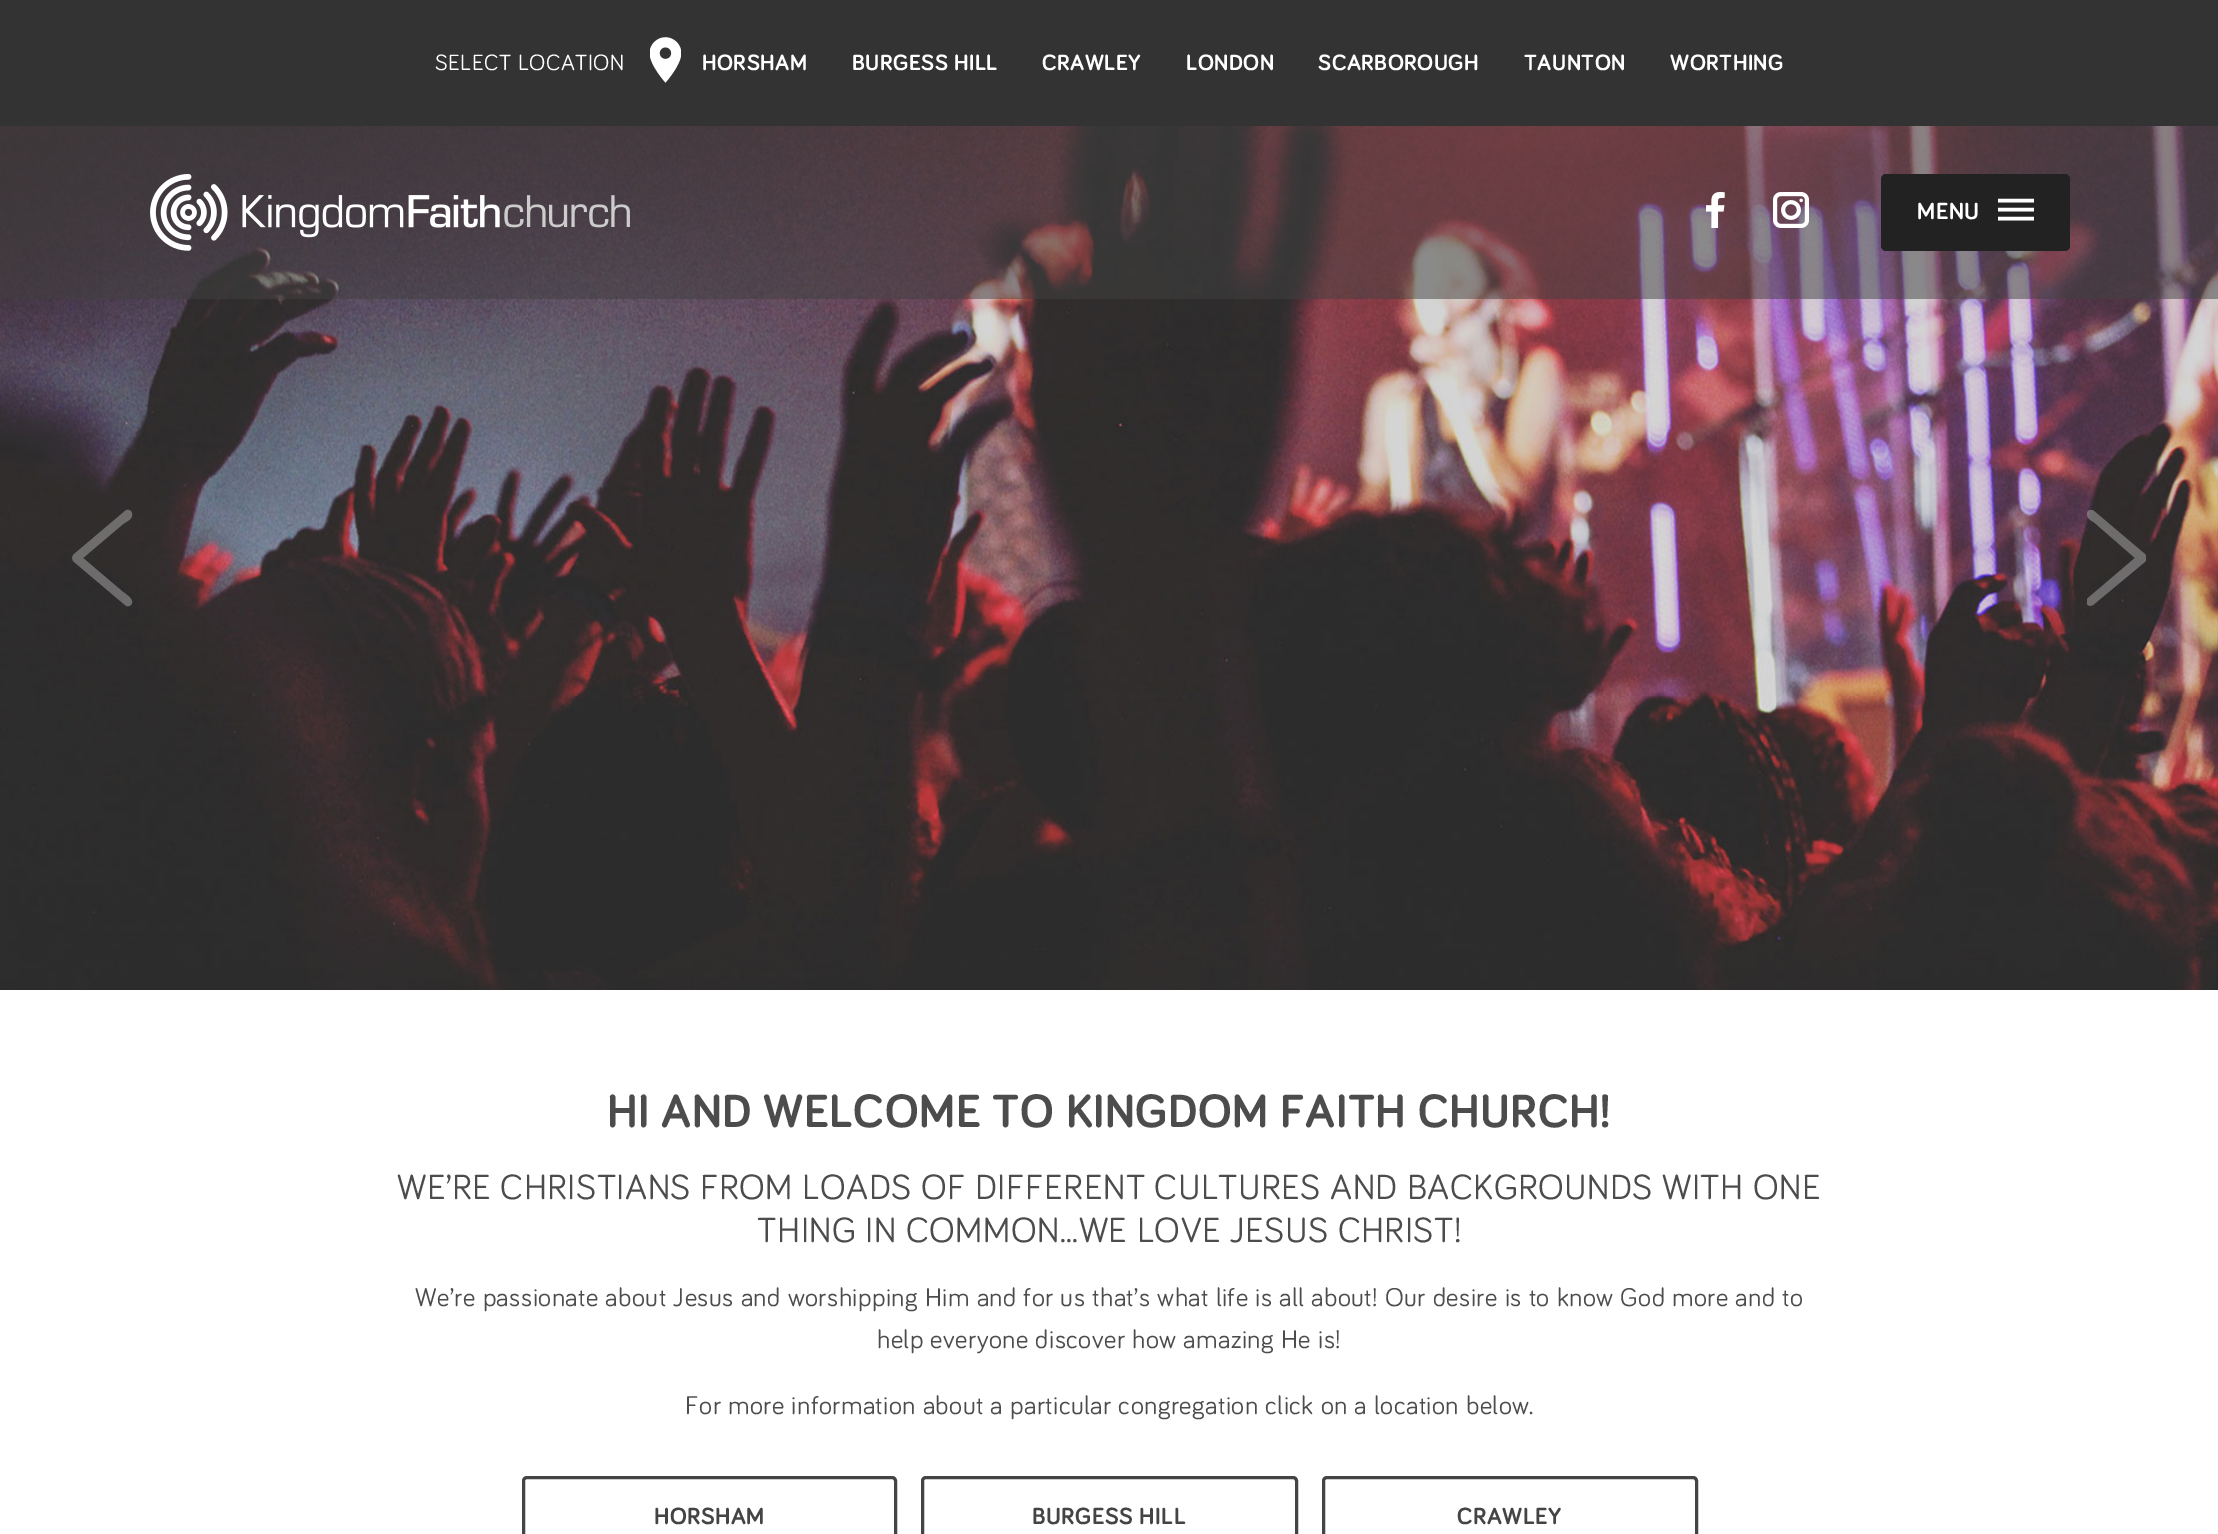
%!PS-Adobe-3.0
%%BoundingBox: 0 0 2218 1534
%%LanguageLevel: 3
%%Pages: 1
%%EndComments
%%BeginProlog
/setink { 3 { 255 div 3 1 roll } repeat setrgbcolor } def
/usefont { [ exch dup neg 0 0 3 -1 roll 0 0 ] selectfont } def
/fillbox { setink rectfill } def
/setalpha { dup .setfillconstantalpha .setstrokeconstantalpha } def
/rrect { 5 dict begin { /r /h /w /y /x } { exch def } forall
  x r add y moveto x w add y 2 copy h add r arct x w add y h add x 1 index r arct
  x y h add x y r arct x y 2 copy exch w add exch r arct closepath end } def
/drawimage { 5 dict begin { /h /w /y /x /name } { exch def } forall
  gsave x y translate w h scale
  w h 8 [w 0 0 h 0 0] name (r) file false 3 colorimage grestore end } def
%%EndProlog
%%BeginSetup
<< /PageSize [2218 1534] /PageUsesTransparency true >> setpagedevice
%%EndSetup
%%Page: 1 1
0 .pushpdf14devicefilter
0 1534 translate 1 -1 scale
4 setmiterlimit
0 0 2218 1534 255 255 255 fillbox
0 0 2218 126 51 51 51 fillbox
/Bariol-Regular 22.75 usefont
255 255 255 setink
435 70 moveto 0.48 0 (SELECT LOCATION) ashow
(assets/img1.rgb) 650 37 31 46 drawimage
/Bariol-Bold 22.75 usefont
702 70 moveto 0.48 0 (HORSHAM) ashow
852 70 moveto 0.48 0 (BURGESS HILL) ashow
1042 70 moveto 0.48 0 (CRAWLEY) ashow
1186 70 moveto 0.48 0 (LONDON) ashow
1318 70 moveto 0.48 0 (SCARBOROUGH) ashow
1524 70 moveto 0.48 0 (TAUNTON) ashow
1670 70 moveto 0.48 0 (WORTHING) ashow
(assets/img2.rgb) 0 126 2218 864 drawimage
0.4 setalpha
204 204 204 setink
72 558 moveto 73 555 lineto 125 511 lineto 128 508 133 511 132 516 curveto 131 520 126 522 123 524 curveto 83 558 lineto 123 592 lineto 123 592 131 597 132 601 curveto 133 605 128 608 125 605 curveto 73 561 lineto closepath fill
gsave
2087 510 60 96 rectclip
2146 558 moveto 2146 561 lineto 2093 605 lineto 2090 606 lineto 2086 605 2085 601 2088 598 curveto 2135 558 lineto 2096 524 lineto 2093 521 2088 520 2087 515 curveto 2086 511 2091 508 2094 511 curveto 2146 555 lineto closepath fill
grestore
0.5 setalpha
0 126 2218 173 64 64 64 fillbox
1 setalpha
(assets/img3.rgb) 150 174 480 77 drawimage
(assets/img4.rgb) 1706 192 19 36 drawimage
(assets/img5.rgb) 1773 192 36 36 drawimage
34 34 34 setink
1881 174 189 77 5 rrect fill
/Bariol-Bold 24 usefont
255 255 255 setink
1917 219 moveto 0.48 0 (MENU) ashow
3.6 setlinewidth
1998 200.5 moveto 2034 200.5 lineto 1998 209.5 moveto 2034 209.5 lineto 1998 218.5 moveto 2034 218.5 lineto stroke
/Bariol-Bold 48 usefont
76 76 76 setink
607 1127 moveto 0.48 0 (HI AND WELCOME TO KINGDOM FAITH CHURCH!) ashow
/Bariol-Regular 36 usefont
397 1199 moveto 0.48 0 (WE’RE CHRISTIANS FROM LOADS OF DIFFERENT CULTURES AND BACKGROUNDS WITH ONE) ashow
757 1242 moveto 0.48 0 (THING IN COMMON...WE LOVE JESUS CHRIST!) ashow
/Bariol-Regular 26.4 usefont
415 1306 moveto 0.48 0 (We’re passionate about Jesus and worshipping Him and for us that’s what life is all about! Our desire is to know God more and to) ashow
877 1348 moveto 0.48 0 (help everyone discover how amazing He is!) ashow
685 1414 moveto 0.48 0 (For more information about a particular congregation click on a location below.) ashow
68 68 68 setink
3 setlinewidth
523.5 1477.5 372 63 3.5 rrect stroke
/Bariol-Bold 24 usefont
654 1524 moveto 0.48 0 (HORSHAM) ashow
922.5 1477.5 374 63 3.5 rrect stroke
1032 1524 moveto 0.48 0 (BURGESS HILL) ashow
1323.5 1477.5 373 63 3.5 rrect stroke
1457 1524 moveto 0.48 0 (CRAWLEY) ashow
.poppdf14devicefilter showpage
%%EOF
